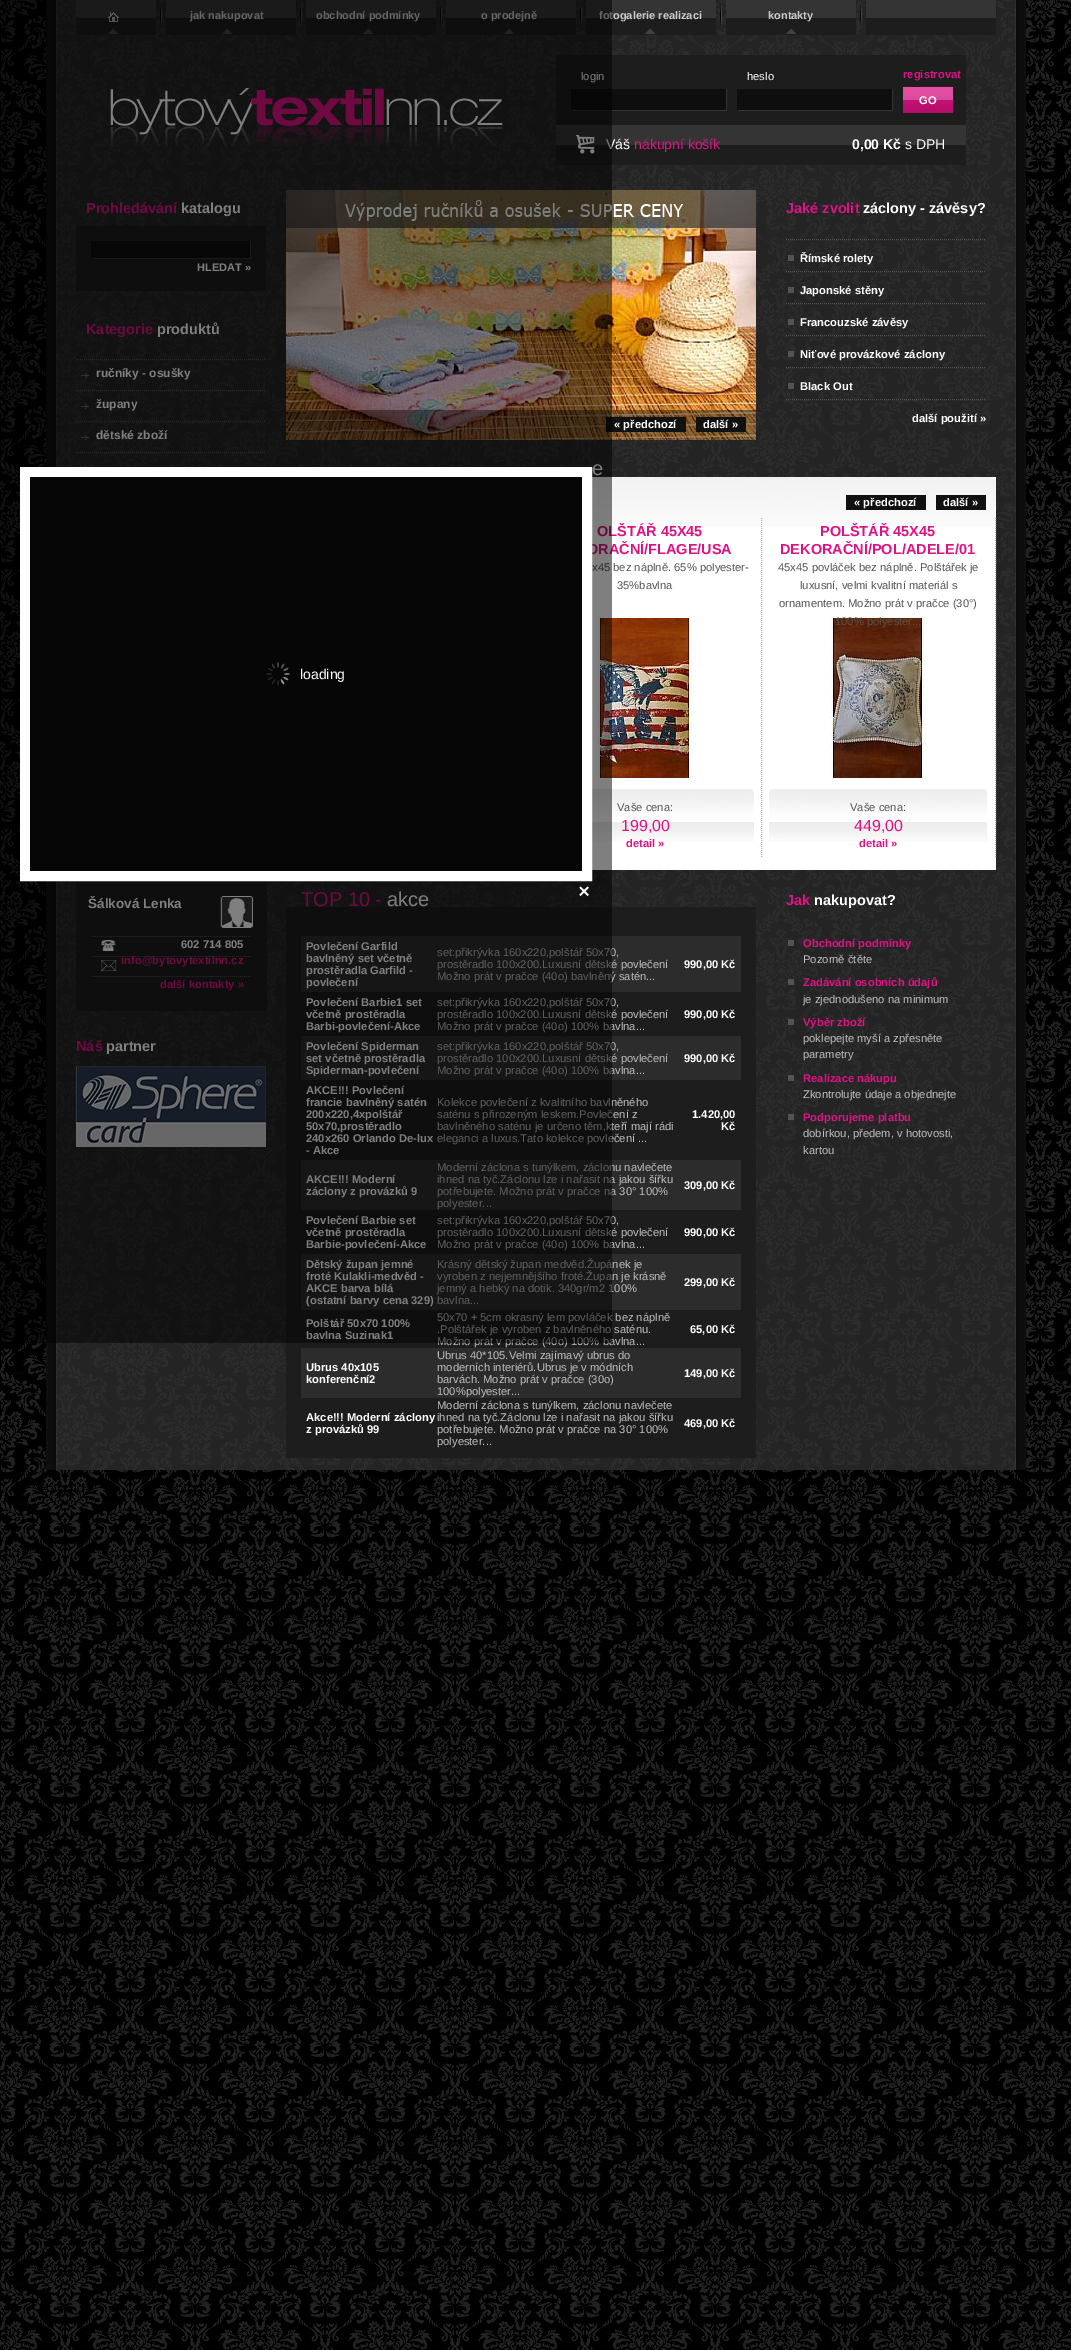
%!PS-Adobe-3.0
%%BoundingBox: 0 0 1071 2350
%%LanguageLevel: 3
%%Pages: 1
%%EndComments
%%BeginProlog
/setink { 3 { 255 div 3 1 roll } repeat setrgbcolor } def
/usefont { [ exch dup neg 0 0 3 -1 roll 0 0 ] selectfont } def
/drawtext { setink usefont moveto show } def
/fillbox { setink rectfill } def
/setalpha { dup .setfillconstantalpha .setstrokeconstantalpha } def
/drawimage { 5 dict begin { /h /w /y /x /name } { exch def } forall
  gsave x y translate w h scale
  w h 8 [w 0 0 h 0 0] name (r) file false 3 colorimage grestore end } def
%%EndProlog
%%BeginSetup
<< /PageSize [1071 2350] /PageUsesTransparency true >> setpagedevice
%%EndSetup
%%Page: 1 1
0 .pushpdf14devicefilter
0 2350 translate 1 -1 scale
4 setmiterlimit
0 0 1071 2350 255 255 255 fillbox
(assets/img1.rgb) 0 0 1071 2350 drawimage
(assets/img2.rgb) 46 35 980 1435 drawimage
(assets/img3.rgb) 46 0 980 35 drawimage
(assets/img4.rgb) 108 12 11 22 drawimage
(assets/img5.rgb) 222 28 10 6 drawimage
(jak nakupovat) 190 19 /LiberationSans-Bold 11 203 203 203 drawtext
(assets/img5.rgb) 363 28 10 6 drawimage
(obchodní podmínky) 316 19 /LiberationSans-Bold 11 203 203 203 drawtext
(assets/img5.rgb) 504 28 10 6 drawimage
(o prodejně) 481 19 /LiberationSans-Bold 11 203 203 203 drawtext
(assets/img5.rgb) 645 28 10 6 drawimage
(fotogalerie realizaci) 599 19 /LiberationSans-Bold 11 203 203 203 drawtext
(assets/img5.rgb) 786 28 10 6 drawimage
(kontakty) 768 19 /LiberationSans-Bold 11 203 203 203 drawtext
(assets/img6.rgb) 556 125 410 40 drawimage
(Váš) 606 149 /LiberationSans-Regular 14 255 255 255 drawtext
(nákupní košík) 634 149 /LiberationSans-Regular 14 221 18 132 drawtext
(0,00 Kč) 852 149 /LiberationSans-Bold 14 255 255 255 drawtext
(s DPH) 905 149 /LiberationSans-Regular 14 255 255 255 drawtext
(assets/img7.rgb) 110 88 393 59 drawimage
556 55 410 70 29 29 29 fillbox
(login) 581 80 /LiberationSans-Regular 11.2 255 255 255 drawtext
(heslo) 747 80 /LiberationSans-Regular 11.2 255 255 255 drawtext
(registrovat) 903 78 /LiberationSans-Bold 11.2 221 18 132 drawtext
572 89 154 21 14 14 14 fillbox
726 89 1 22 53 53 53 fillbox
571 110 156 1 53 53 53 fillbox
571 89 1 22 14 14 14 fillbox
738 89 154 21 14 14 14 fillbox
892 89 1 22 53 53 53 fillbox
737 110 156 1 53 53 53 fillbox
737 89 1 22 14 14 14 fillbox
(assets/img8.rgb) 903 87 50 26 drawimage
(GO) 919 104 /LiberationSans-Bold 11.2 255 255 255 drawtext
(Prohledávání) 86 213 /LiberationSans-Bold 14.5 221 18 132 drawtext
(katalogu) 181 213 /LiberationSans-Bold 14.5 255 255 255 drawtext
76 226 190 65 29 29 29 fillbox
92 241 158 17 14 14 14 fillbox
250 241 1 18 53 53 53 fillbox
91 258 160 1 53 53 53 fillbox
91 241 1 18 14 14 14 fillbox
(HLEDAT ») 197 271 /LiberationSans-Bold 11 255 255 255 drawtext
(Kategorie) 86 334 /LiberationSans-Bold 14.5 221 18 132 drawtext
(produktů) 157 334 /LiberationSans-Bold 14.5 255 255 255 drawtext
83 83 83 setink
[1 1] 0 setdash
76 359.5 moveto 266 359.5 lineto stroke
(assets/img9.rgb) 81 373 8 5 drawimage
76 390.5 moveto 266 390.5 lineto stroke
(ručníky - osušky) 96 377 /LiberationSans-Bold 12 255 255 255 drawtext
(assets/img10.rgb) 81 404 8 5 drawimage
83 83 83 setink
76 421.5 moveto 266 421.5 lineto stroke
(župany) 96 408 /LiberationSans-Bold 12 255 255 255 drawtext
(assets/img11.rgb) 81 435 8 5 drawimage
83 83 83 setink
76 452.5 moveto 266 452.5 lineto stroke
(dětské zboží) 96 439 /LiberationSans-Bold 12 255 255 255 drawtext
(assets/img12.rgb) 85 466 1 1 drawimage
(assets/img13.rgb) 76 881 191 130 drawimage
(Šálková Lenka) 88 908 /LiberationSans-Bold 13.5 255 255 255 drawtext
(602 714 805) 181 948 /LiberationSans-Bold 11.2 255 255 255 drawtext
(info@bytovytextilnn.cz) 121 964 /LiberationSans-Bold 11.2 221 18 132 drawtext
(další kontakty ») 160 988 /LiberationSans-Bold 11.2 221 18 132 drawtext
(Náš) 76 1051 /LiberationSans-Bold 14.5 221 18 132 drawtext
(partner) 106 1051 /LiberationSans-Bold 14.5 255 255 255 drawtext
(assets/img14.rgb) 76 1066 190 81 drawimage
(assets/img15.rgb) 286 190 470 250 drawimage
0.4 setalpha
286 410 470 30 0 0 0 fillbox
1 setalpha
606 417 80 15 17 17 17 fillbox
(« předchozí) 614 428 /LiberationSans-Bold 11.2 255 255 255 drawtext
696 417 50 15 17 17 17 fillbox
(další ») 703 428 /LiberationSans-Bold 11.2 255 255 255 drawtext
(Jaké zvolit) 786 213 /LiberationSans-Bold 14.5 221 18 132 drawtext
(záclony - závěsy?) 863 213 /LiberationSans-Bold 14.5 255 255 255 drawtext
788 255 6 6 83 83 83 fillbox
786 239.5 moveto 986 239.5 lineto stroke
786 271.5 moveto 986 271.5 lineto stroke
(Římské rolety) 800 262 /LiberationSans-Bold 11.2 255 255 255 drawtext
788 287 6 6 83 83 83 fillbox
786 303.5 moveto 986 303.5 lineto stroke
(Japonské stěny) 800 294 /LiberationSans-Bold 11.2 255 255 255 drawtext
788 319 6 6 83 83 83 fillbox
786 335.5 moveto 986 335.5 lineto stroke
(Francouzské závěsy) 800 326 /LiberationSans-Bold 11.2 255 255 255 drawtext
788 351 6 6 83 83 83 fillbox
786 367.5 moveto 986 367.5 lineto stroke
(Niťové provázkové záclony) 800 358 /LiberationSans-Bold 11.2 255 255 255 drawtext
788 383 6 6 83 83 83 fillbox
786 399.5 moveto 986 399.5 lineto stroke
(Black Out) 800 390 /LiberationSans-Bold 11.2 255 255 255 drawtext
(další použití ») 912 422 /LiberationSans-Bold 11.2 255 255 255 drawtext
592 527 404 343 255 255 255 fillbox
(assets/img16.rgb) 592 477 404 50 drawimage
(e) 592 475 /LiberationSans-Regular 20 255 255 255 drawtext
846 495 80 15 17 17 17 fillbox
(« předchozí) 854 506 /LiberationSans-Bold 11.2 255 255 255 drawtext
936 495 50 15 17 17 17 fillbox
(další ») 943 506 /LiberationSans-Bold 11.2 255 255 255 drawtext
178 178 178 setink
761.5 518 moveto 761.5 858 lineto stroke
(OLŠTÁŘ 45X45) 597 536 /LiberationSans-Bold 14.5 221 18 132 drawtext
(ORAČNÍ/FLAGE/USA) 587 554 /LiberationSans-Bold 14.5 221 18 132 drawtext
(x45 bez náplně. 65% polyester-) 592 571 /LiberationSans-Regular 11.2 83 83 83 drawtext
(35%bavlna) 617 589 /LiberationSans-Regular 11.2 83 83 83 drawtext
(assets/img17.rgb) 597 618 96 160 drawimage
(assets/img18.rgb) 592 789 162 53 drawimage
(Vaše cena:) 617 811 /LiberationSans-Regular 11.2 83 83 83 drawtext
(199,00) 621 831 /LiberationSans-Regular 16 221 18 132 drawtext
(detail ») 626 847 /LiberationSans-Bold 11.2 221 18 132 drawtext
178 178 178 setink
995.5 518 moveto 995.5 858 lineto stroke
(POLŠTÁŘ 45X45) 820 536 /LiberationSans-Bold 14.5 221 18 132 drawtext
(DEKORAČNÍ/POL/ADELE/01) 780 554 /LiberationSans-Bold 14.5 221 18 132 drawtext
(45x45 povláček bez náplně. Polštářek je) 778 571 /LiberationSans-Regular 11.2 83 83 83 drawtext
(luxusní, velmi kvalitní materiál s) 800 589 /LiberationSans-Regular 11.2 83 83 83 drawtext
(ornamentem. Možno prát v pračce \(30°\)) 779 607 /LiberationSans-Regular 11.2 83 83 83 drawtext
(assets/img19.rgb) 830 618 96 160 drawimage
(100% polyester...) 835 625 /LiberationSans-Regular 11.2 83 83 83 drawtext
(assets/img20.rgb) 769 789 218 53 drawimage
(Vaše cena:) 850 811 /LiberationSans-Regular 11.2 83 83 83 drawtext
(449,00) 854 831 /LiberationSans-Regular 16 221 18 132 drawtext
(detail ») 859 847 /LiberationSans-Bold 11.2 221 18 132 drawtext
286 907 470 551 29 29 29 fillbox
(TOP 10 -) 301 906 /LiberationSans-Regular 20 221 18 132 drawtext
(akce) 387 906 /LiberationSans-Regular 20 255 255 255 drawtext
301 936 440 56 44 44 44 fillbox
(Povlečení Garfild) 306 950 /LiberationSans-Bold 11.2 255 255 255 drawtext
(bavlněný set včetně) 306 962 /LiberationSans-Bold 11.2 255 255 255 drawtext
(prostěradla Garfild -) 306 974 /LiberationSans-Bold 11.2 255 255 255 drawtext
(povlečení) 306 986 /LiberationSans-Bold 11.2 255 255 255 drawtext
(set:přikrývka 160x220,polštář 50x70,) 437 956 /LiberationSans-Regular 11.2 191 191 191 drawtext
(prostěradlo 100x200.Luxusní dětské povlečení) 437 968 /LiberationSans-Regular 11.2 191 191 191 drawtext
(Možno prát v pračce \(40o\) bavlněný satén...) 437 980 /LiberationSans-Regular 11.2 191 191 191 drawtext
(990,00 Kč) 684 968 /LiberationSans-Bold 11.2 255 255 255 drawtext
(Povlečení Barbie1 set) 306 1006 /LiberationSans-Bold 11.2 255 255 255 drawtext
(včetně prostěradla) 306 1018 /LiberationSans-Bold 11.2 255 255 255 drawtext
(Barbi-povlečení-Akce) 306 1030 /LiberationSans-Bold 11.2 255 255 255 drawtext
(set:přikrývka 160x220,polštář 50x70,) 437 1006 /LiberationSans-Regular 11.2 191 191 191 drawtext
(prostěradlo 100x200.Luxusní dětské povlečení) 437 1018 /LiberationSans-Regular 11.2 191 191 191 drawtext
(Možno prát v pračce \(40o\) 100% bavlna...) 437 1030 /LiberationSans-Regular 11.2 191 191 191 drawtext
(990,00 Kč) 684 1018 /LiberationSans-Bold 11.2 255 255 255 drawtext
301 1036 440 44 44 44 44 fillbox
(Povlečení Spiderman) 306 1050 /LiberationSans-Bold 11.2 255 255 255 drawtext
(set včetně prostěradla) 306 1062 /LiberationSans-Bold 11.2 255 255 255 drawtext
(Spiderman-povlečení) 306 1074 /LiberationSans-Bold 11.2 255 255 255 drawtext
(set:přikrývka 160x220,polštář 50x70,) 437 1050 /LiberationSans-Regular 11.2 191 191 191 drawtext
(prostěradlo 100x200.Luxusní dětské povlečení) 437 1062 /LiberationSans-Regular 11.2 191 191 191 drawtext
(Možno prát v pračce \(40o\) 100% bavlna...) 437 1074 /LiberationSans-Regular 11.2 191 191 191 drawtext
(990,00 Kč) 684 1062 /LiberationSans-Bold 11.2 255 255 255 drawtext
(AKCE!!! Povlečení) 306 1094 /LiberationSans-Bold 11.2 255 255 255 drawtext
(francie bavlněný satén) 306 1106 /LiberationSans-Bold 11.2 255 255 255 drawtext
(200x220,4xpolštář) 306 1118 /LiberationSans-Bold 11.2 255 255 255 drawtext
(50x70,prostěradlo) 306 1130 /LiberationSans-Bold 11.2 255 255 255 drawtext
(240x260 Orlando De-lux) 306 1142 /LiberationSans-Bold 11.2 255 255 255 drawtext
(- Akce) 306 1154 /LiberationSans-Bold 11.2 255 255 255 drawtext
(Kolekce povlečení z kvalitního bavlněného) 437 1106 /LiberationSans-Regular 11.2 191 191 191 drawtext
(saténu s přirozeným leskem.Povlečení z) 437 1118 /LiberationSans-Regular 11.2 191 191 191 drawtext
(bavlněného saténu je určeno těm,kteří mají rádi) 437 1130 /LiberationSans-Regular 11.2 191 191 191 drawtext
(eleganci a luxus.Tato kolekce povlečení ...) 437 1142 /LiberationSans-Regular 11.2 191 191 191 drawtext
(1.420,00) 692 1118 /LiberationSans-Bold 11.2 255 255 255 drawtext
(Kč) 721 1130 /LiberationSans-Bold 11.2 255 255 255 drawtext
301 1160 440 50 44 44 44 fillbox
(AKCE!!! Moderní) 306 1183 /LiberationSans-Bold 11.2 255 255 255 drawtext
(záclony z provázků 9) 306 1195 /LiberationSans-Bold 11.2 255 255 255 drawtext
(Moderní záclona s tunýlkem, záclonu navlečete) 437 1171 /LiberationSans-Regular 11.2 191 191 191 drawtext
(ihned na tyč.Záclonu lze i nařasit na jakou šířku) 437 1183 /LiberationSans-Regular 11.2 191 191 191 drawtext
(potřebujete. Možno prát v pračce na 30° 100%) 437 1195 /LiberationSans-Regular 11.2 191 191 191 drawtext
(polyester...) 437 1207 /LiberationSans-Regular 11.2 191 191 191 drawtext
(309,00 Kč) 684 1189 /LiberationSans-Bold 11.2 255 255 255 drawtext
(Povlečení Barbie set) 306 1224 /LiberationSans-Bold 11.2 255 255 255 drawtext
(včetně prostěradla) 306 1236 /LiberationSans-Bold 11.2 255 255 255 drawtext
(Barbie-povlečení-Akce) 306 1248 /LiberationSans-Bold 11.2 255 255 255 drawtext
(set:přikrývka 160x220,polštář 50x70,) 437 1224 /LiberationSans-Regular 11.2 191 191 191 drawtext
(prostěradlo 100x200.Luxusní dětské povlečení) 437 1236 /LiberationSans-Regular 11.2 191 191 191 drawtext
(Možno prát v pračce \(40o\) 100% bavlna...) 437 1248 /LiberationSans-Regular 11.2 191 191 191 drawtext
(990,00 Kč) 684 1236 /LiberationSans-Bold 11.2 255 255 255 drawtext
301 1254 440 56 44 44 44 fillbox
(Dětský župan jemné) 306 1268 /LiberationSans-Bold 11.2 255 255 255 drawtext
(froté Kulakli-medvěd -) 306 1280 /LiberationSans-Bold 11.2 255 255 255 drawtext
(AKCE barva bílá) 306 1292 /LiberationSans-Bold 11.2 255 255 255 drawtext
(\(ostatní barvy cena 329\)) 306 1304 /LiberationSans-Bold 11.2 255 255 255 drawtext
(Krásný dětský župan medvěd.Župánek je) 437 1268 /LiberationSans-Regular 11.2 191 191 191 drawtext
(vyroben z nejjemnějšího froté.Župan je krásně) 437 1280 /LiberationSans-Regular 11.2 191 191 191 drawtext
(jemný a hebký na dotik. 340gr/m2 100%) 437 1292 /LiberationSans-Regular 11.2 191 191 191 drawtext
(bavlna...) 437 1304 /LiberationSans-Regular 11.2 191 191 191 drawtext
(299,00 Kč) 684 1286 /LiberationSans-Bold 11.2 255 255 255 drawtext
(Polštář 50x70 100%) 306 1327 /LiberationSans-Bold 11.2 255 255 255 drawtext
(bavlna Suzinak1) 306 1339 /LiberationSans-Bold 11.2 255 255 255 drawtext
(50x70 + 5cm okrasný lem povláček bez náplně) 437 1321 /LiberationSans-Regular 11.2 191 191 191 drawtext
(.Polštářek je vyroben z bavlněného saténu.) 437 1333 /LiberationSans-Regular 11.2 191 191 191 drawtext
(Možno prát v pračce \(40o\) 100% bavlna...) 437 1345 /LiberationSans-Regular 11.2 191 191 191 drawtext
(65,00 Kč) 690 1333 /LiberationSans-Bold 11.2 255 255 255 drawtext
301 1348 440 50 44 44 44 fillbox
(Ubrus 40x105) 306 1371 /LiberationSans-Bold 11.2 255 255 255 drawtext
(konferenční2) 306 1383 /LiberationSans-Bold 11.2 255 255 255 drawtext
(Ubrus 40*105.Velmi zajímavý ubrus do) 437 1359 /LiberationSans-Regular 11.2 191 191 191 drawtext
(moderních interiérů.Ubrus je v módních) 437 1371 /LiberationSans-Regular 11.2 191 191 191 drawtext
(barvách. Možno prát v pračce \(30o\)) 437 1383 /LiberationSans-Regular 11.2 191 191 191 drawtext
(100%polyester...) 437 1395 /LiberationSans-Regular 11.2 191 191 191 drawtext
(149,00 Kč) 684 1377 /LiberationSans-Bold 11.2 255 255 255 drawtext
(Akce!!! Moderní záclony) 306 1421 /LiberationSans-Bold 11.2 255 255 255 drawtext
(z provázků 99) 306 1433 /LiberationSans-Bold 11.2 255 255 255 drawtext
(Moderní záclona s tunýlkem, záclonu navlečete) 437 1409 /LiberationSans-Regular 11.2 191 191 191 drawtext
(ihned na tyč.Záclonu lze i nařasit na jakou šířku) 437 1421 /LiberationSans-Regular 11.2 191 191 191 drawtext
(potřebujete. Možno prát v pračce na 30° 100%) 437 1433 /LiberationSans-Regular 11.2 191 191 191 drawtext
(polyester...) 437 1445 /LiberationSans-Regular 11.2 191 191 191 drawtext
(469,00 Kč) 684 1427 /LiberationSans-Bold 11.2 255 255 255 drawtext
(Jak) 786 905 /LiberationSans-Bold 14.5 221 18 132 drawtext
(nakupovat?) 814 905 /LiberationSans-Bold 14.5 255 255 255 drawtext
788 940 6 6 83 83 83 fillbox
(Obchodní podmínky) 803 947 /LiberationSans-Bold 11.2 221 18 132 drawtext
(Pozorně čtěte) 803 963 /LiberationSans-Regular 11.2 191 191 191 drawtext
788 979 6 6 83 83 83 fillbox
(Zadávání osobních údajů) 803 986 /LiberationSans-Bold 11.2 221 18 132 drawtext
(je zjednodušeno na minimum) 803 1003 /LiberationSans-Regular 11.2 191 191 191 drawtext
788 1019 6 6 83 83 83 fillbox
(Výběr zboží) 803 1026 /LiberationSans-Bold 11.2 221 18 132 drawtext
(poklepejte myší a zpřesněte) 803 1042 /LiberationSans-Regular 11.2 191 191 191 drawtext
(parametry) 803 1058 /LiberationSans-Regular 11.2 191 191 191 drawtext
788 1075 6 6 83 83 83 fillbox
(Realizace nákupu) 803 1082 /LiberationSans-Bold 11.2 221 18 132 drawtext
(Zkontrolujte údaje a objednejte) 803 1098 /LiberationSans-Regular 11.2 191 191 191 drawtext
788 1114 6 6 83 83 83 fillbox
(Podporujeme platbu) 803 1121 /LiberationSans-Bold 11.2 221 18 132 drawtext
(dobírkou, předem, v hotovosti,) 803 1137 /LiberationSans-Regular 11.2 191 191 191 drawtext
(kartou) 803 1154 /LiberationSans-Regular 11.2 191 191 191 drawtext
0.5 setalpha
0 0 612 1343 0 0 0 fillbox
1 setalpha
255 255 255 setink
10 setlinewidth
[] 0 setdash
25 472 562 404 rectstroke
30 477 552 394 6 6 6 fillbox
(assets/img21.rgb) 266 662 24 24 drawimage
(loading) 300 679 /LiberationSans-Regular 14 255 255 255 drawtext
(assets/img22.rgb) 579 886 10 10 drawimage
.poppdf14devicefilter showpage
%%EOF
